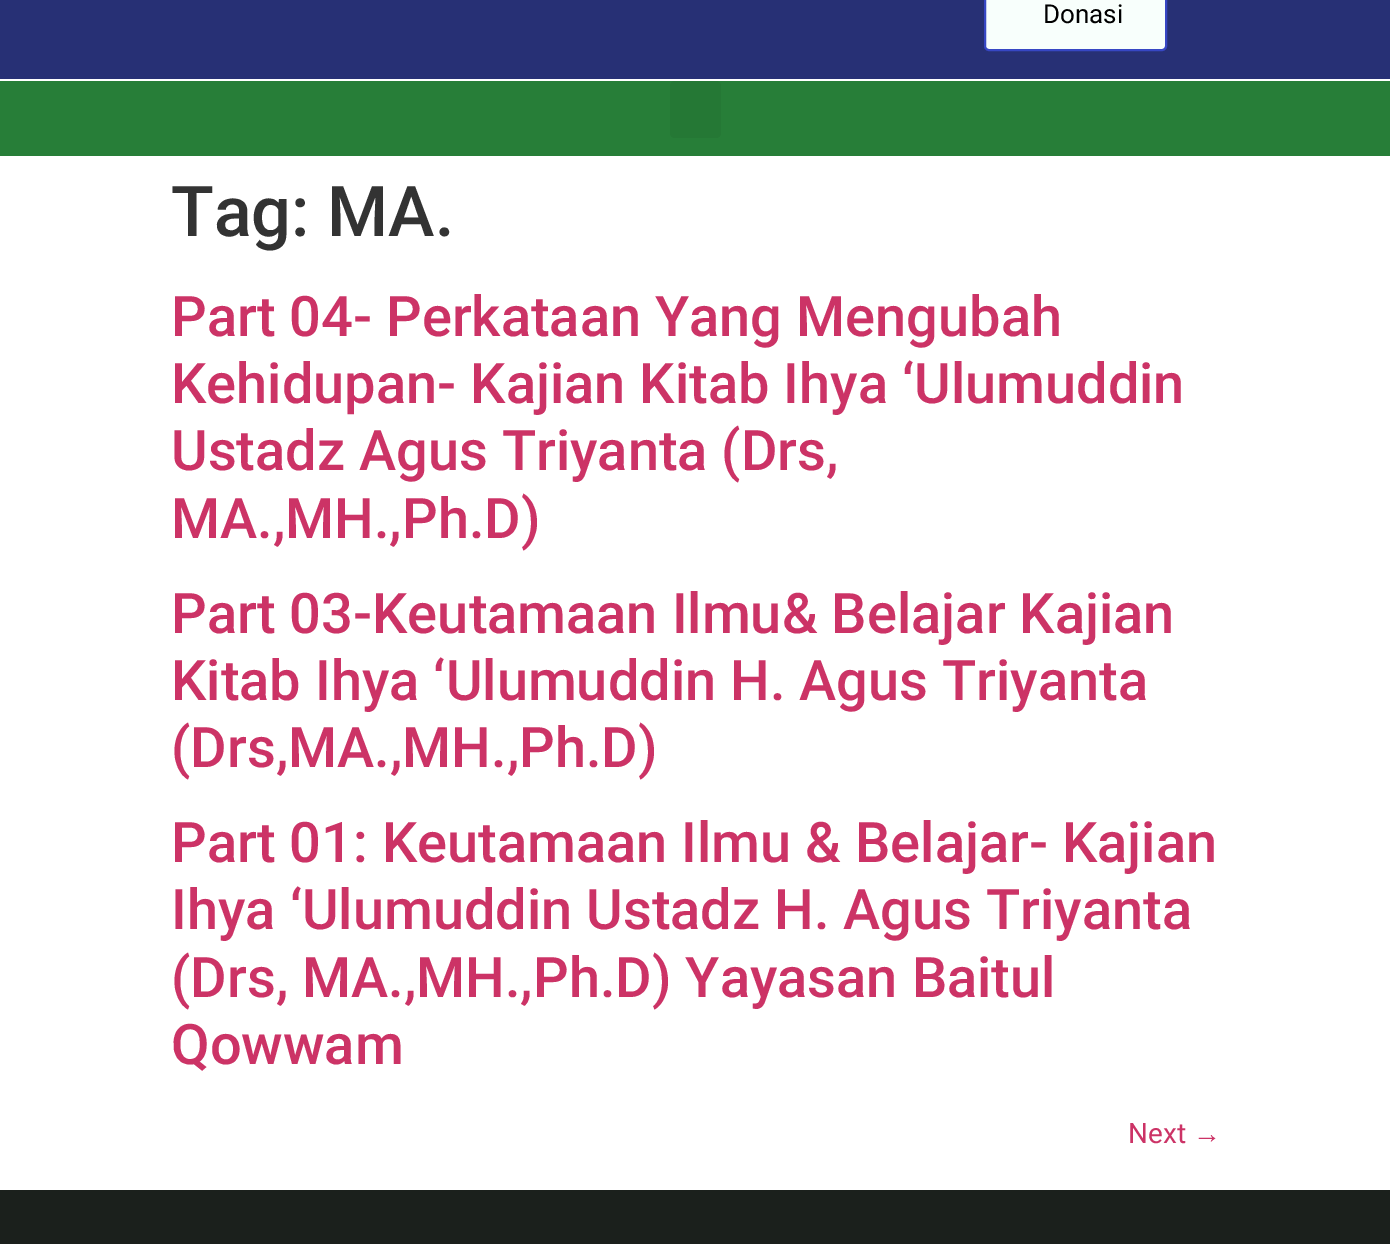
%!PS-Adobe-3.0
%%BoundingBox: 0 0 1390 1244
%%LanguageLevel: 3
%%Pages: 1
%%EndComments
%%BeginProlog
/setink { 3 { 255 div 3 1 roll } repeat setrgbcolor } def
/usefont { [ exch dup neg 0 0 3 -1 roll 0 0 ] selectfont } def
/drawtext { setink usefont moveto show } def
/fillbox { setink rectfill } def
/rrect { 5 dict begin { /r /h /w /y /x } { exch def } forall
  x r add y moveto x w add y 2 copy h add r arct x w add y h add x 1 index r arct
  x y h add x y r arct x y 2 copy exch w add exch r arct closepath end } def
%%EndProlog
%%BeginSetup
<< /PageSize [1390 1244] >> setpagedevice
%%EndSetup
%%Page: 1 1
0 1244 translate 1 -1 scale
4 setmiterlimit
0 0 1390 1244 255 255 255 fillbox
0 0 1390 79 39 48 117 fillbox
248 255 252 setink
985 -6 181 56 4 rrect gsave fill grestore
55 71 196 setink
2 setlinewidth
stroke
(Donasi) 1043 23 /Roboto-Regular 26 0 0 0 drawtext
0 81 1390 75 39 126 56 fillbox
37 120 53 setink
670 81 51 57 5 rrect fill
(Tag: MA.) 171 236 /Roboto-Medium 70 51 51 51 drawtext
(Part 04- Perkataan Yang Mengubah) 171 336 /Roboto-Medium 56 204 51 102 drawtext
(Kehidupan- Kajian Kitab Ihya ‘Ulumuddin) 171 403 /Roboto-Medium 56 204 51 102 drawtext
(Ustadz Agus Triyanta \(Drs,) 171 470 /Roboto-Medium 56 204 51 102 drawtext
(MA.,MH.,Ph.D\)) 171 538 /Roboto-Medium 56 204 51 102 drawtext
(Part 03-Keutamaan Ilmu& Belajar Kajian) 171 633 /Roboto-Medium 56 204 51 102 drawtext
(Kitab Ihya ‘Ulumuddin H. Agus Triyanta) 171 700 /Roboto-Medium 56 204 51 102 drawtext
(\(Drs,MA.,MH.,Ph.D\)) 171 767 /Roboto-Medium 56 204 51 102 drawtext
(Part 01: Keutamaan Ilmu & Belajar- Kajian) 171 862 /Roboto-Medium 56 204 51 102 drawtext
(Ihya ‘Ulumuddin Ustadz H. Agus Triyanta) 171 929 /Roboto-Medium 56 204 51 102 drawtext
(\(Drs, MA.,MH.,Ph.D\) Yayasan Baitul) 171 997 /Roboto-Medium 56 204 51 102 drawtext
(Qowwam) 171 1064 /Roboto-Medium 56 204 51 102 drawtext
(Next) 1128 1143 /Roboto-Regular 28 204 51 102 drawtext
(→) 1193 1143 /LiberationSans-Regular 28 204 51 102 drawtext
0 1190 1390 54 27 32 28 fillbox
showpage
%%EOF
